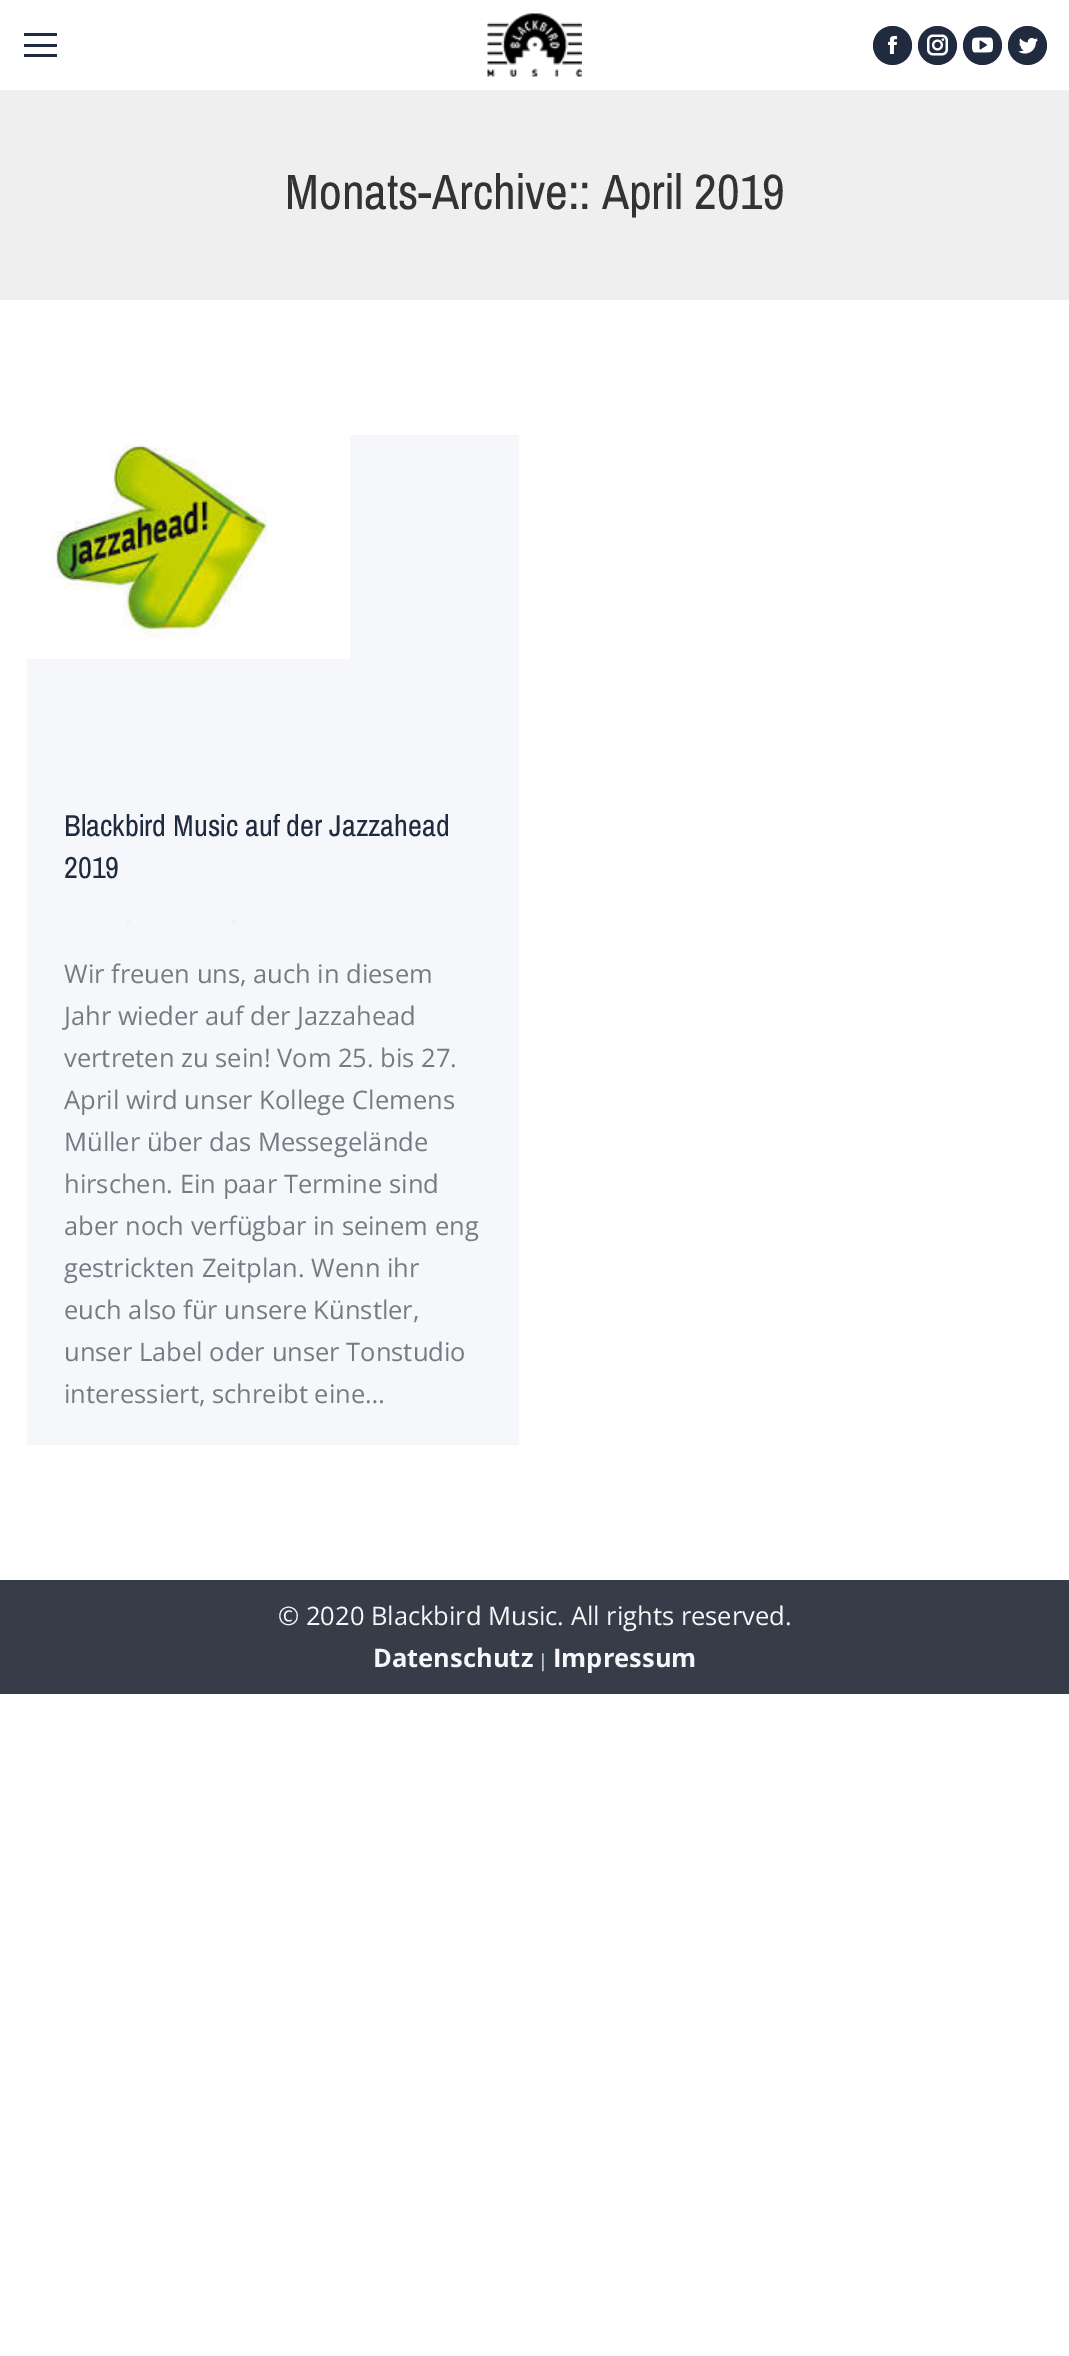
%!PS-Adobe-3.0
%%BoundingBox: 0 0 1069 2356
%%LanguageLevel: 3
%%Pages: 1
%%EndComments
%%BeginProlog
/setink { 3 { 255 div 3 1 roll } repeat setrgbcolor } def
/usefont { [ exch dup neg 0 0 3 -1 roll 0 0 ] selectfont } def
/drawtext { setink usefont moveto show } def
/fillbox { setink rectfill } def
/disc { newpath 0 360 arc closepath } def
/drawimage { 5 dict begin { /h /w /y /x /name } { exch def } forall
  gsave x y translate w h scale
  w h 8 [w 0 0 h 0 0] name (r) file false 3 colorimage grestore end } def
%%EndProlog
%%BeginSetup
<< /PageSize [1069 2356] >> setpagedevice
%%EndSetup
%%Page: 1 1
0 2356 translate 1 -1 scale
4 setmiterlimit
0 0 1069 2356 255 255 255 fillbox
24 33 33 3 32 43 64 fillbox
24 44 33 3 32 43 64 fillbox
24 54 33 3 32 43 64 fillbox
(assets/img1.rgb) 487 13 95 64 drawimage
33 43 63 setink
892.5 45.5 19.5 disc fill
(assets/img2.rgb) 887 36 11 18 drawimage
937.5 45.5 19.5 disc fill
(assets/img3.rgb) 927 34 21 22 drawimage
982.5 45.5 19.5 disc fill
(assets/img4.rgb) 972 37 21 16 drawimage
1027.5 45.5 19.5 disc fill
(assets/img5.rgb) 1018 37 20 17 drawimage
0 90 1069 210 239 239 239 fillbox
(Monats-Archive:: April 2019) 285 209 /PragatiNarrow-Regular 54 51 51 51 drawtext
27 435 492 1010 246 247 250 fillbox
(assets/img6.rgb) 27 435 323 224 drawimage
(Blackbird Music auf der Jazzahead) 64 836 /PragatiNarrow-Regular 33 32 43 64 drawtext
(2019) 64 878 /PragatiNarrow-Regular 33 32 43 64 drawtext
241 243 246 setink
128.5 922.5 2.5 disc fill
233.5 922.5 2.5 disc fill
(Wir freuen uns, auch in diesem) 64 983 /OpenSans-Regular 25.5 118 122 129 drawtext
(Jahr wieder auf der Jazzahead) 64 1025 /OpenSans-Regular 25.5 118 122 129 drawtext
(vertreten zu sein! Vom 25. bis 27.) 64 1067 /OpenSans-Regular 25.5 118 122 129 drawtext
(April wird unser Kollege Clemens) 64 1109 /OpenSans-Regular 25.5 118 122 129 drawtext
(Müller über das Messegelände) 64 1151 /OpenSans-Regular 25.5 118 122 129 drawtext
(hirschen. Ein paar Termine sind) 64 1193 /OpenSans-Regular 25.5 118 122 129 drawtext
(aber noch verfügbar in seinem eng) 64 1235 /OpenSans-Regular 25.5 118 122 129 drawtext
(gestrickten Zeitplan. Wenn ihr) 64 1277 /OpenSans-Regular 25.5 118 122 129 drawtext
(euch also für unsere Künstler,) 64 1319 /OpenSans-Regular 25.5 118 122 129 drawtext
(unser Label oder unser Tonstudio) 64 1361 /OpenSans-Regular 25.5 118 122 129 drawtext
(interessiert, schreibt eine…) 64 1403 /OpenSans-Regular 25.5 118 122 129 drawtext
0 1580 1069 114 54 60 72 fillbox
(© 2020 Blackbird Music. All rights reserved.) 278 1625 /OpenSans-Regular 25.5 246 247 250 drawtext
(Datenschutz) 373 1667 /OpenSans-Bold 25.5 246 247 250 drawtext
(|) 538 1667 /OpenSans-Regular 18 246 247 250 drawtext
(Impressum) 553 1667 /OpenSans-Bold 25.5 246 247 250 drawtext
showpage
%%EOF
